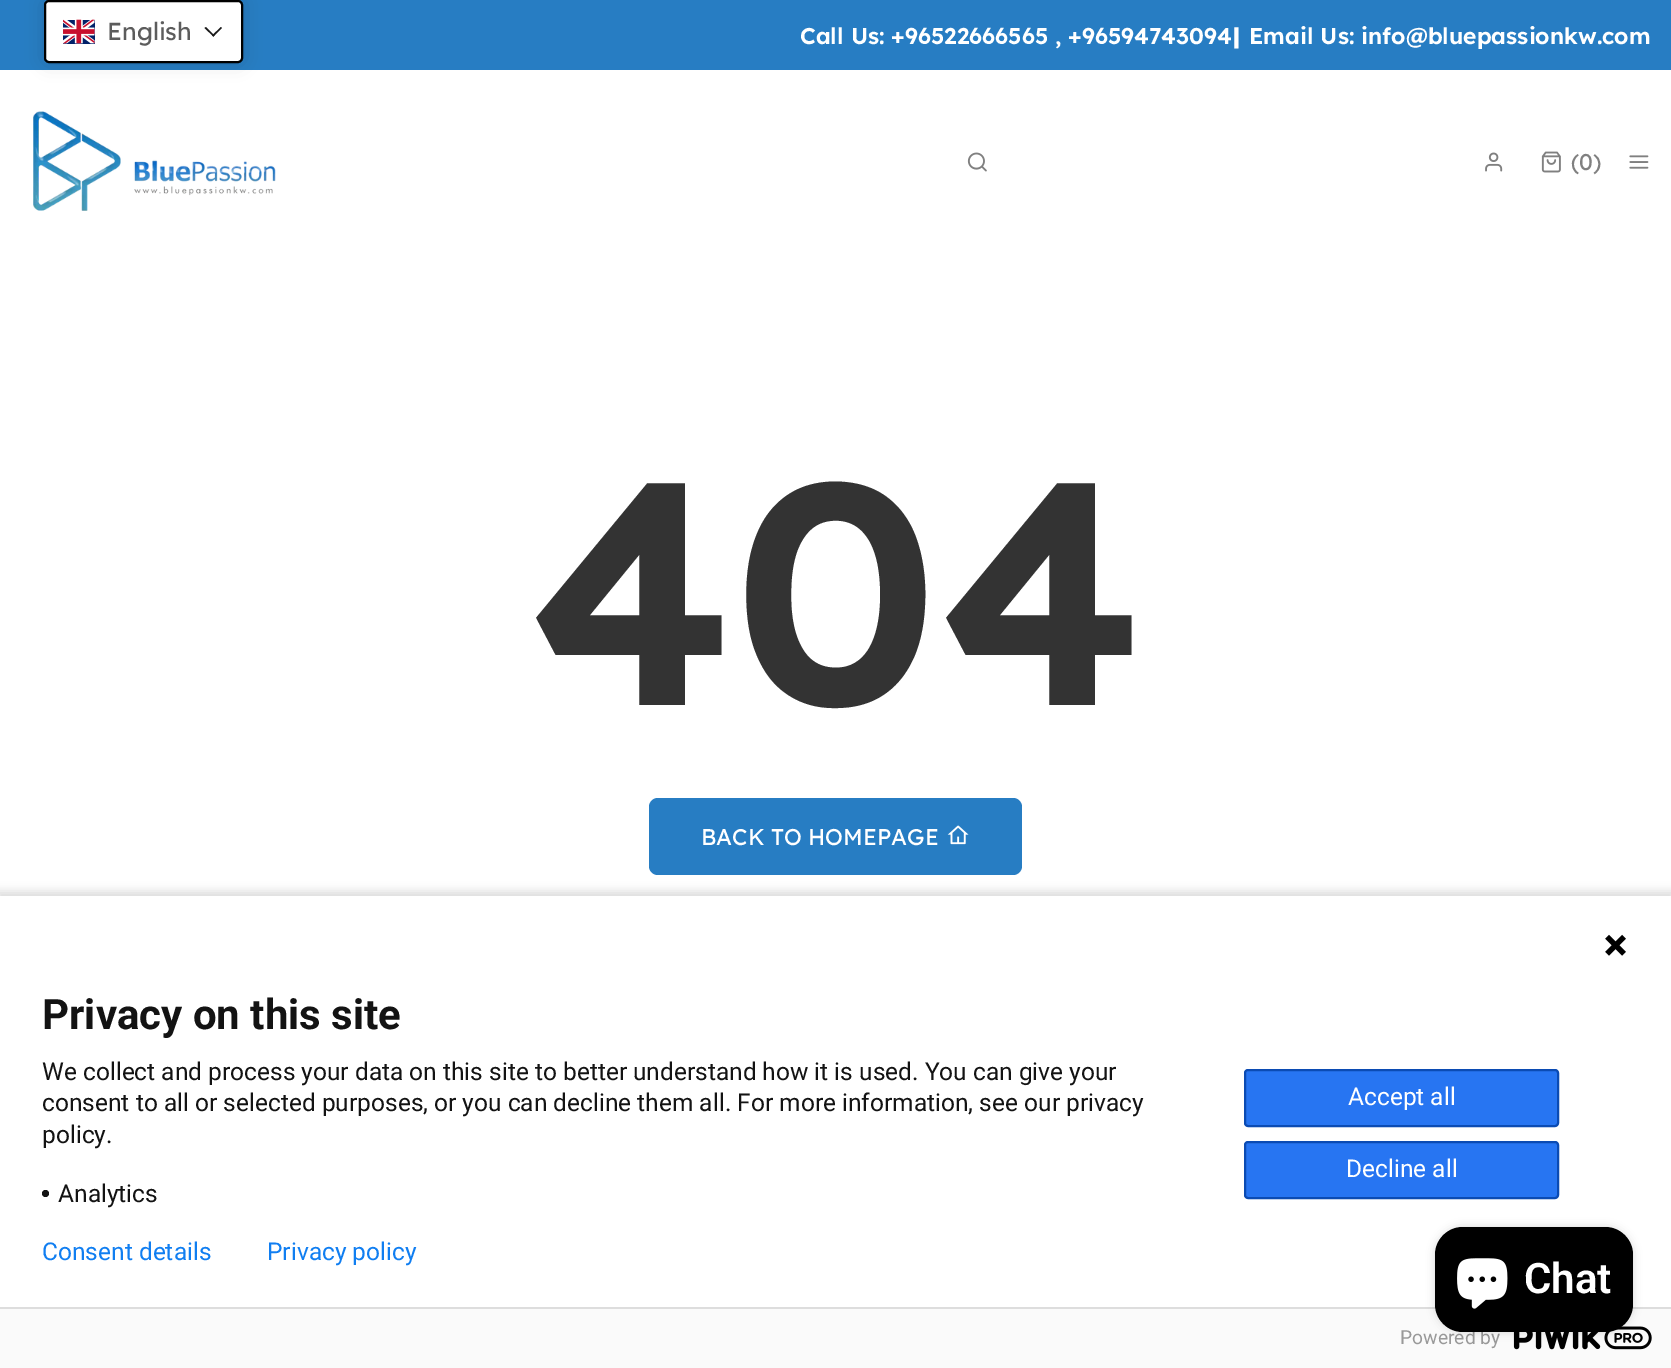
%!PS-Adobe-3.0
%%BoundingBox: 0 0 1671 1368
%%LanguageLevel: 3
%%Pages: 1
%%EndComments
%%BeginProlog
/setink { 3 { 255 div 3 1 roll } repeat setrgbcolor } def
/usefont { [ exch dup neg 0 0 3 -1 roll 0 0 ] selectfont } def
/drawtext { setink usefont moveto show } def
/fillbox { setink rectfill } def
/setalpha { dup .setfillconstantalpha .setstrokeconstantalpha } def
/disc { newpath 0 360 arc closepath } def
/rrect { 5 dict begin { /r /h /w /y /x } { exch def } forall
  x r add y moveto x w add y 2 copy h add r arct x w add y h add x 1 index r arct
  x y h add x y r arct x y 2 copy exch w add exch r arct closepath end } def
/softshadow { 12 dict begin { /a /b /q /h /w /y /x } { exch def } forall gsave /was 0 def
  9 -2 -9 { dup b mul 4 div /e exch def 1 sub .425 mul 2.718 exch exp 1 add a .99 .min exch div /now exch def
    1 1 now sub 1 was sub div sub setalpha /was now def
    w h .min e 2 mul add 0 gt { x e sub y e sub w e 2 mul add h e 2 mul add
      q e add b .6 mul add w h .min 2 div e add .min 0 .max rrect fill } if } for grestore end } def
/drawimage { 5 dict begin { /h /w /y /x /name } { exch def } forall
  gsave x y translate w h scale
  w h 8 [w 0 0 h 0 0] name (r) file false 3 colorimage grestore end } def
%%EndProlog
%%BeginSetup
<< /PageSize [1671 1368] /PageUsesTransparency true >> setpagedevice
%%EndSetup
%%Page: 1 1
0 .pushpdf14devicefilter
0 1368 translate 1 -1 scale
4 setmiterlimit
0 0 1671 1368 255 255 255 fillbox
0 0 1671 70 39 125 195 fillbox
0 0 0 setink
44 0 199 63 5 9 0.15 softshadow
255 255 255 setink
45 1 197 61 4 rrect gsave fill grestore
0 0 0 setink
2 setlinewidth
stroke
(assets/img1.rgb) 63 19 32 25 drawimage
(English) 107 40 /Lexend-Regular 24.5 92 92 92 drawtext
26 26 26 setink
221 27 moveto 222 28 lineto 213.5 36.5 lineto 212 35.5 lineto closepath fill
206 27 moveto 214.5 35.5 lineto 213.5 36.5 lineto 204.5 28 lineto closepath fill
(Call Us: +96522666565 , +96594743094) 800 44 /Lexend-SemiBold 22.75 255 255 255 drawtext
(|) 1232 44 /Lexend-Black 22.75 255 255 255 drawtext
(Email Us: info@bluepassionkw.com) 1249 44 /Lexend-SemiBold 22.75 255 255 255 drawtext
(assets/img2.rgb) 33 111 243 100 drawimage
(assets/img3.rgb) 967 152 20 20 drawimage
(assets/img4.rgb) 1485 152 18 20 drawimage
(assets/img5.rgb) 1541 151 20 22 drawimage
(\(0\)) 1571 170 /Lexend-Regular 22.75 128 128 128 drawtext
(assets/img6.rgb) 1629 155 20 14 drawimage
(404) 529 705 /Lexend-SemiBold 315 51 51 51 drawtext
39 125 195 setink
649 798 373 77 9 rrect fill
(BACK TO HOMEPAGE) 701 845 /Lexend-Regular 22.75 255 255 255 drawtext
(assets/img7.rgb) 947 825 22 20 drawimage
0 0 0 setink
-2 891 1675 476 0 4.5 0.14 softshadow
0 896 1671 411 255 255 255 fillbox
(assets/img8.rgb) 1605 934 21 22 drawimage
(Privacy on this site) 42 1029 /Roboto-Bold 42 19 19 19 drawtext
(We collect and process your data on this site to better understand how it is used. You can give your) 42 1080 /Roboto-Regular 24.5 19 19 19 drawtext
(consent to all or selected purposes, or you can decline them all. For more information, see our privacy) 42 1111 /Roboto-Regular 24.5 19 19 19 drawtext
(policy.) 42 1143 /Roboto-Regular 24.5 19 19 19 drawtext
45.5 1193.5 3.5 disc fill
(Analytics) 58 1202 /Roboto-Regular 24.5 19 19 19 drawtext
39 117 242 setink
1245 1070 313 56 3 rrect gsave fill grestore
11 75 179 setink
stroke
(Accept all) 1348 1105 /Roboto-Regular 24.5 255 255 255 drawtext
39 117 242 setink
1245 1142 313 56 3 rrect gsave fill grestore
11 75 179 setink
stroke
(Decline all) 1346 1177 /Roboto-Regular 24.5 255 255 255 drawtext
(Consent details) 42 1260 /Roboto-Regular 24.5 16 126 241 drawtext
(Privacy policy) 267 1260 /Roboto-Regular 24.5 16 126 241 drawtext
0 1309 1671 59 250 250 250 fillbox
0 1307 1671 2 221 221 221 fillbox
(Powered by) 1400 1344 /Roboto-Regular 19.25 153 153 153 drawtext
(assets/img9.rgb) 1513 1326 139 24 drawimage
0 0 0 setink
1435 1227 198 105 28 4.5 0.15 softshadow
1435 1227 198 105 28 rrect fill
(assets/img10.rgb) 1457 1258 51 51 drawimage
(Chat) 1524 1293 /Roboto-SemiBold 42 255 255 255 drawtext
.poppdf14devicefilter showpage
%%EOF
